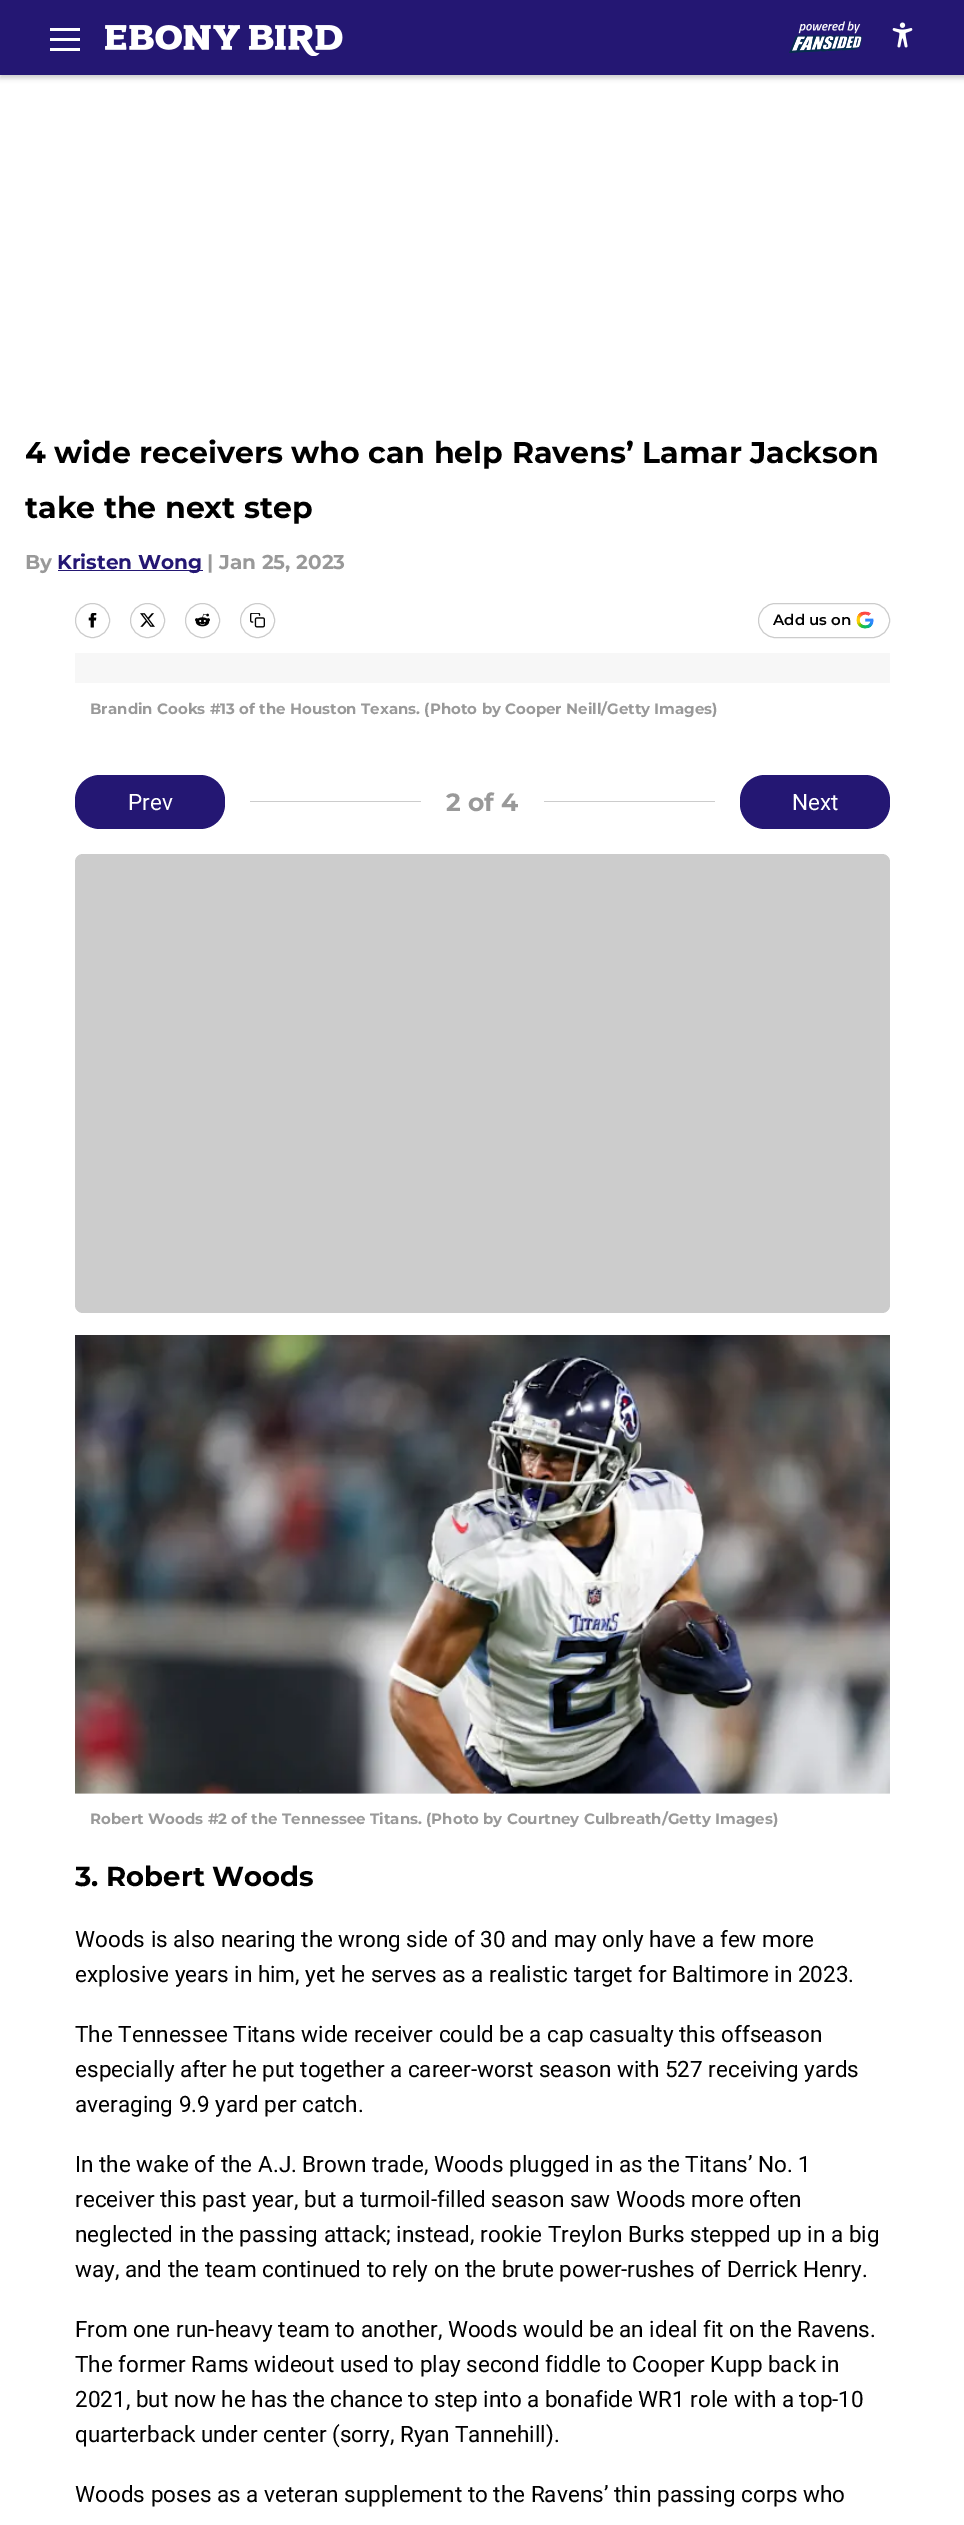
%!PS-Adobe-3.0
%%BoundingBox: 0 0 964 2525
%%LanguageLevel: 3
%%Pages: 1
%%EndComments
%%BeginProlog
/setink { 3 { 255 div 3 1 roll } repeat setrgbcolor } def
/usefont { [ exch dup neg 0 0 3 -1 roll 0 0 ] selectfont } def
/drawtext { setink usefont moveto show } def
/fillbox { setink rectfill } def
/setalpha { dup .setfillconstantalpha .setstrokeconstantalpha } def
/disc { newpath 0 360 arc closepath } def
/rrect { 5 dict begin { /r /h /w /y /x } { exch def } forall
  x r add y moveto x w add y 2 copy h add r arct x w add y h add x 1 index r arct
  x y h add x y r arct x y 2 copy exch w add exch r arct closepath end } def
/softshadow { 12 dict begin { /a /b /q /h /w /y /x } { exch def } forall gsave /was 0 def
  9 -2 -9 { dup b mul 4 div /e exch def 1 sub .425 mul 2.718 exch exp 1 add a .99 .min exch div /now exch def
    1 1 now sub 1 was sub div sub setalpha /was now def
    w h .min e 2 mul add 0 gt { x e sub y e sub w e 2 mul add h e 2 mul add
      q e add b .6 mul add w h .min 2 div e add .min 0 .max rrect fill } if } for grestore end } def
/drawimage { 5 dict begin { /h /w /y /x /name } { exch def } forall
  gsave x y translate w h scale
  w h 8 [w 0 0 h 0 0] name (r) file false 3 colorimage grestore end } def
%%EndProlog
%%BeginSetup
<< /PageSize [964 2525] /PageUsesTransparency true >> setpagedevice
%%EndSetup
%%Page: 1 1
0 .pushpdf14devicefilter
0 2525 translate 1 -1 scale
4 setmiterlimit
0 0 964 2525 255 255 255 fillbox
0 0 0 setink
0 3 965 75 0 2.5 0.2 softshadow
0 0 964 75 36 23 115 fillbox
50 28 30 3 255 255 255 fillbox
50 38 30 3 255 255 255 fillbox
50 48 30 3 255 255 255 fillbox
(assets/img1.rgb) 105 25 238 31 drawimage
(assets/img2.rgb) 789 21 74 32 drawimage
(assets/img3.rgb) 892 22 21 26 drawimage
(4 wide receivers who can help Ravens’ Lamar Jackson) 25 463 /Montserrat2-Thin 30 0 0 0 drawtext
(take the next step) 25 518 /Montserrat2-Thin 30 0 0 0 drawtext
(By) 25 569 /Montserrat2-Thin 20 153 153 153 drawtext
58 570 145 1 36 23 115 fillbox
(Kristen Wong) 57 569 /Montserrat2-Thin 20 36 23 115 drawtext
(|) 207 569 /Montserrat2-Thin 20 153 153 153 drawtext
(Jan 25, 2023) 219 569 /Montserrat2-Thin 20 153 153 153 drawtext
204 204 204 setink
92.5 620.5 17 disc stroke
(assets/img4.rgb) 88 613 9 15 drawimage
147.5 620.5 17 disc stroke
(assets/img5.rgb) 140 613 15 14 drawimage
202.5 620.5 17 disc stroke
(assets/img6.rgb) 195 613 15 14 drawimage
257.5 620.5 17 disc stroke
(assets/img7.rgb) 250 613 15 15 drawimage
758.5 603.5 131 34 17 rrect stroke
(Add us on) 773 625 /Montserrat-Thin 15 0 0 0 drawtext
(assets/img8.rgb) 856 611 18 18 drawimage
75 653 815 30 247 247 247 fillbox
(Brandin Cooks #13 of the Houston Texans. \(Photo by Cooper Neill/Getty Images\)) 90 714 /Montserrat2-Thin 15 153 153 153 drawtext
36 23 115 setink
75 775 150 54 25 rrect fill
(Prev) 128 810 /Roboto-Regular 22.5 255 255 255 drawtext
250 801 171 1 204 204 204 fillbox
(2 of 4) 446 811 /Montserrat2-Thin 25 153 153 153 drawtext
544 801 171 1 204 204 204 fillbox
36 23 115 setink
740 775 150 54 25 rrect fill
(Next) 792 810 /Roboto-Regular 22.5 255 255 255 drawtext
204 204 204 setink
75 854 815 459 8 rrect fill
75 1793 815 1 247 247 247 fillbox
(assets/img9.rgb) 75 1335 815 459 drawimage
(Robert Woods #2 of the Tennessee Titans. \(Photo by Courtney Culbreath/Getty Images\)) 90 1824 /Montserrat2-Thin 15 153 153 153 drawtext
(3. Robert Woods) 75 1886 /Montserrat2-Thin 27.5 0 0 0 drawtext
(Woods is also nearing the wrong side of 30 and may only have a few more) 75 1947 /Roboto-Regular 22.5 0 0 0 drawtext
(explosive years in him, yet he serves as a realistic target for Baltimore in 2023.) 75 1982 /Roboto-Regular 22.5 0 0 0 drawtext
(The Tennessee Titans wide receiver could be a cap casualty this offseason) 75 2042 /Roboto-Regular 22.5 0 0 0 drawtext
(especially after he put together a career-worst season with 527 receiving yards) 75 2077 /Roboto-Regular 22.5 0 0 0 drawtext
(averaging 9.9 yard per catch.) 75 2112 /Roboto-Regular 22.5 0 0 0 drawtext
(In the wake of the A.J. Brown trade, Woods plugged in as the Titans’ No. 1) 75 2172 /Roboto-Regular 22.5 0 0 0 drawtext
(receiver this past year, but a turmoil-filled season saw Woods more often) 75 2207 /Roboto-Regular 22.5 0 0 0 drawtext
(neglected in the passing attack; instead, rookie Treylon Burks stepped up in a big) 75 2242 /Roboto-Regular 22.5 0 0 0 drawtext
(way, and the team continued to rely on the brute power-rushes of Derrick Henry.) 75 2277 /Roboto-Regular 22.5 0 0 0 drawtext
(From one run-heavy team to another, Woods would be an ideal fit on the Ravens.) 75 2337 /Roboto-Regular 22.5 0 0 0 drawtext
(The former Rams wideout used to play second fiddle to Cooper Kupp back in) 75 2372 /Roboto-Regular 22.5 0 0 0 drawtext
(2021, but now he has the chance to step into a bonafide WR1 role with a top-10) 75 2407 /Roboto-Regular 22.5 0 0 0 drawtext
(quarterback under center \(sorry, Ryan Tannehill\).) 75 2442 /Roboto-Regular 22.5 0 0 0 drawtext
(Woods poses as a veteran supplement to the Ravens’ thin passing corps who) 75 2502 /Roboto-Regular 22.5 0 0 0 drawtext
.poppdf14devicefilter showpage
%%EOF
